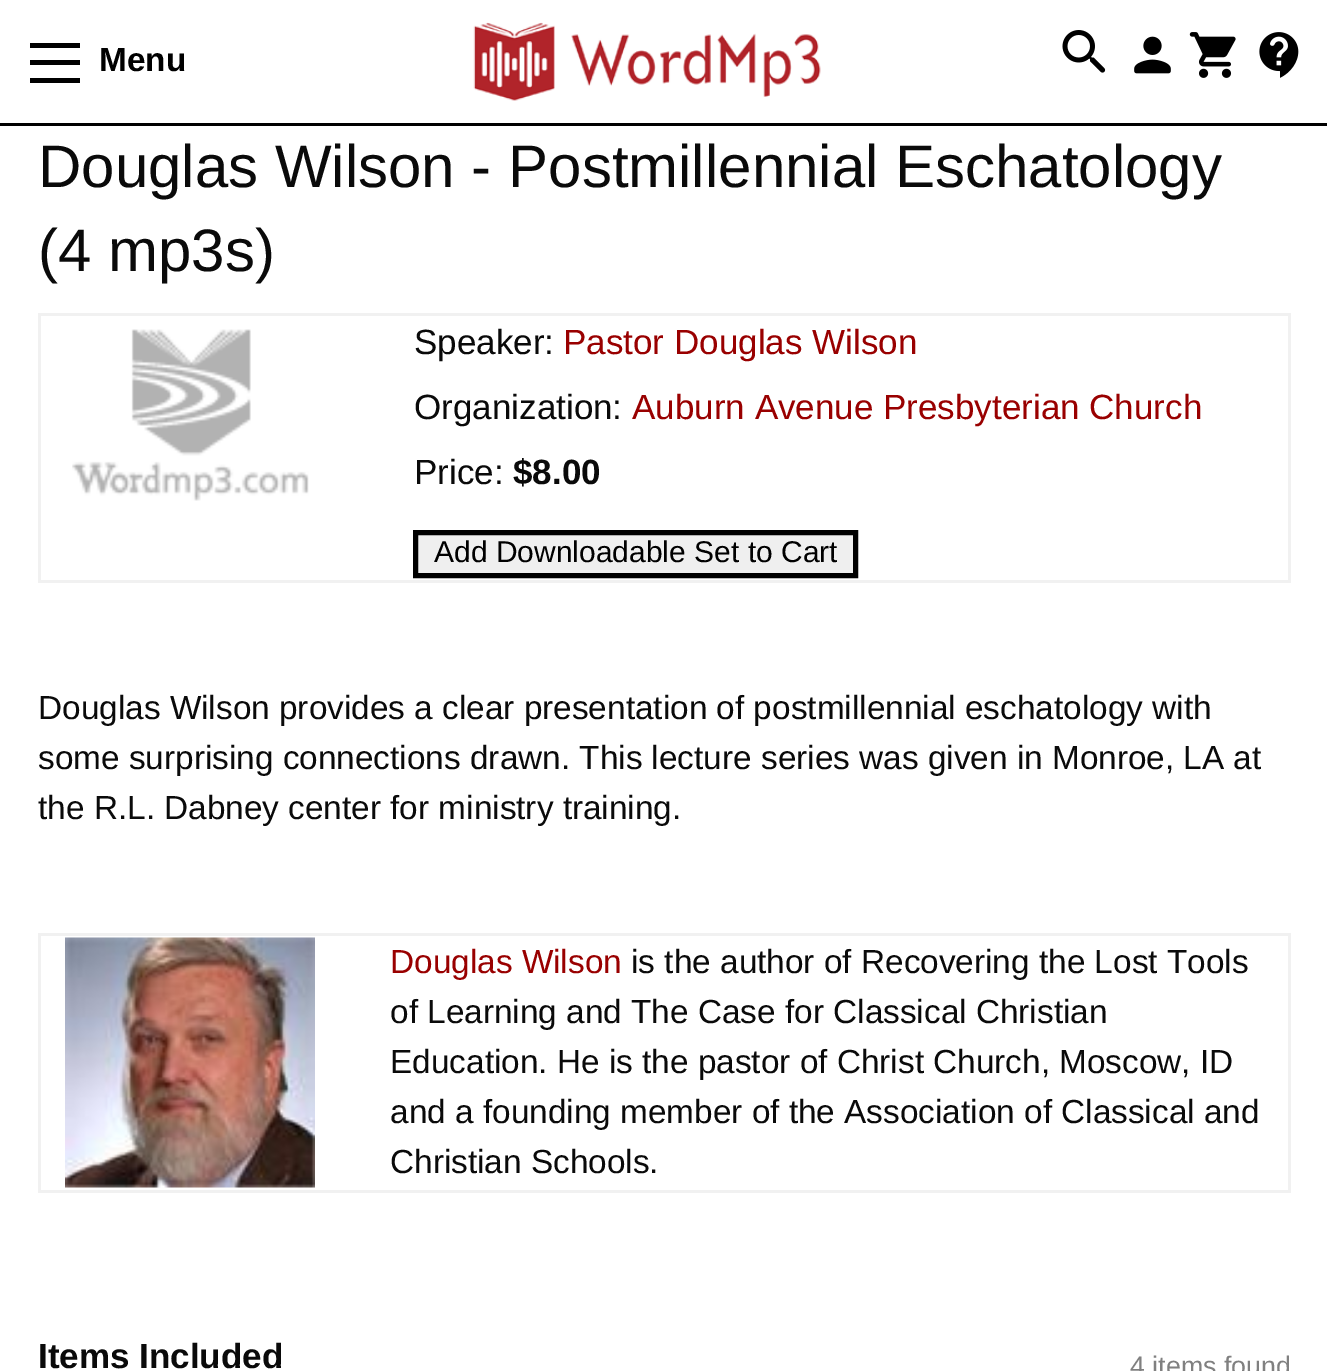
%!PS-Adobe-3.0
%%BoundingBox: 0 0 1327 1371
%%LanguageLevel: 3
%%Pages: 1
%%EndComments
%%BeginProlog
/setink { 3 { 255 div 3 1 roll } repeat setrgbcolor } def
/usefont { [ exch dup neg 0 0 3 -1 roll 0 0 ] selectfont } def
/drawtext { setink usefont moveto show } def
/fillbox { setink rectfill } def
/drawimage { 5 dict begin { /h /w /y /x /name } { exch def } forall
  gsave x y translate w h scale
  w h 8 [w 0 0 h 0 0] name (r) file false 3 colorimage grestore end } def
%%EndProlog
%%BeginSetup
<< /PageSize [1327 1371] >> setpagedevice
%%EndSetup
%%Page: 1 1
0 1371 translate 1 -1 scale
4 setmiterlimit
0 0 1327 1371 255 255 255 fillbox
0 123 1327 3 0 0 0 fillbox
30 78 50 5 0 0 0 fillbox
30 60 50 5 0 0 0 fillbox
30 43 50 5 0 0 0 fillbox
(Menu) 99 71 /LiberationSans-Bold 33.35 0 0 0 drawtext
(assets/img1.rgb) 473 22 348 79 drawimage
(assets/img2.rgb) 1062 30 44 43 drawimage
(assets/img3.rgb) 1134 36 37 38 drawimage
(assets/img4.rgb) 1189 32 47 46 drawimage
(assets/img5.rgb) 1259 32 40 46 drawimage
(Douglas Wilson - Postmillennial Eschatology) 38 187 /LiberationSans-Regular 60 10 10 10 drawtext
(\(4 mp3s\)) 38 271 /LiberationSans-Regular 60 10 10 10 drawtext
38 313 1252 3 241 241 241 fillbox
1288 313 3 270 241 241 241 fillbox
38 580 1252 3 241 241 241 fillbox
38 313 3 270 241 241 241 fillbox
(assets/img6.rgb) 72 329 237 172 drawimage
(Speaker:) 414 354 /LiberationSans-Regular 35 10 10 10 drawtext
(Pastor Douglas Wilson) 563 354 /LiberationSans-Regular 35 153 0 0 drawtext
(Organization:) 414 419 /LiberationSans-Regular 35 10 10 10 drawtext
(Auburn Avenue Presbyterian Church) 632 419 /LiberationSans-Regular 35 153 0 0 drawtext
(Price:) 414 484 /LiberationSans-Regular 35 10 10 10 drawtext
($8.00) 513 484 /LiberationSans-Bold 35 10 10 10 drawtext
239 239 239 setink
415.5 532.5 moveto 855.5 532.5 lineto 855.5 575.5 lineto 415.5 575.5 lineto closepath gsave fill grestore
0 0 0 setink
5 setlinewidth
stroke
(Add Downloadable Set to Cart) 434 562 /LiberationSans-Regular 30 0 0 0 drawtext
(Douglas Wilson provides a clear presentation of postmillennial eschatology with) 38 719 /LiberationSans-Regular 33.35 10 10 10 drawtext
(some surprising connections drawn. This lecture series was given in Monroe, LA at) 38 769 /LiberationSans-Regular 33.35 10 10 10 drawtext
(the R.L. Dabney center for ministry training.) 38 819 /LiberationSans-Regular 33.35 10 10 10 drawtext
38 933 1252 3 241 241 241 fillbox
1288 933 3 260 241 241 241 fillbox
38 1190 1252 3 241 241 241 fillbox
38 933 3 260 241 241 241 fillbox
(assets/img7.rgb) 65 937 250 251 drawimage
(Douglas Wilson) 390 973 /LiberationSans-Regular 33.35 153 0 0 drawtext
(is the author of Recovering the Lost Tools) 631 973 /LiberationSans-Regular 33.35 10 10 10 drawtext
(of Learning and The Case for Classical Christian) 390 1023 /LiberationSans-Regular 33.35 10 10 10 drawtext
(Education. He is the pastor of Christ Church, Moscow, ID) 390 1073 /LiberationSans-Regular 33.35 10 10 10 drawtext
(and a founding member of the Association of Classical and) 390 1123 /LiberationSans-Regular 33.35 10 10 10 drawtext
(Christian Schools.) 390 1173 /LiberationSans-Regular 33.35 10 10 10 drawtext
(Items Included) 38 1368 /LiberationSans-Bold 35 10 10 10 drawtext
(4 items found) 1130 1375 /LiberationSans-Regular 26.75 128 128 128 drawtext
showpage
%%EOF
